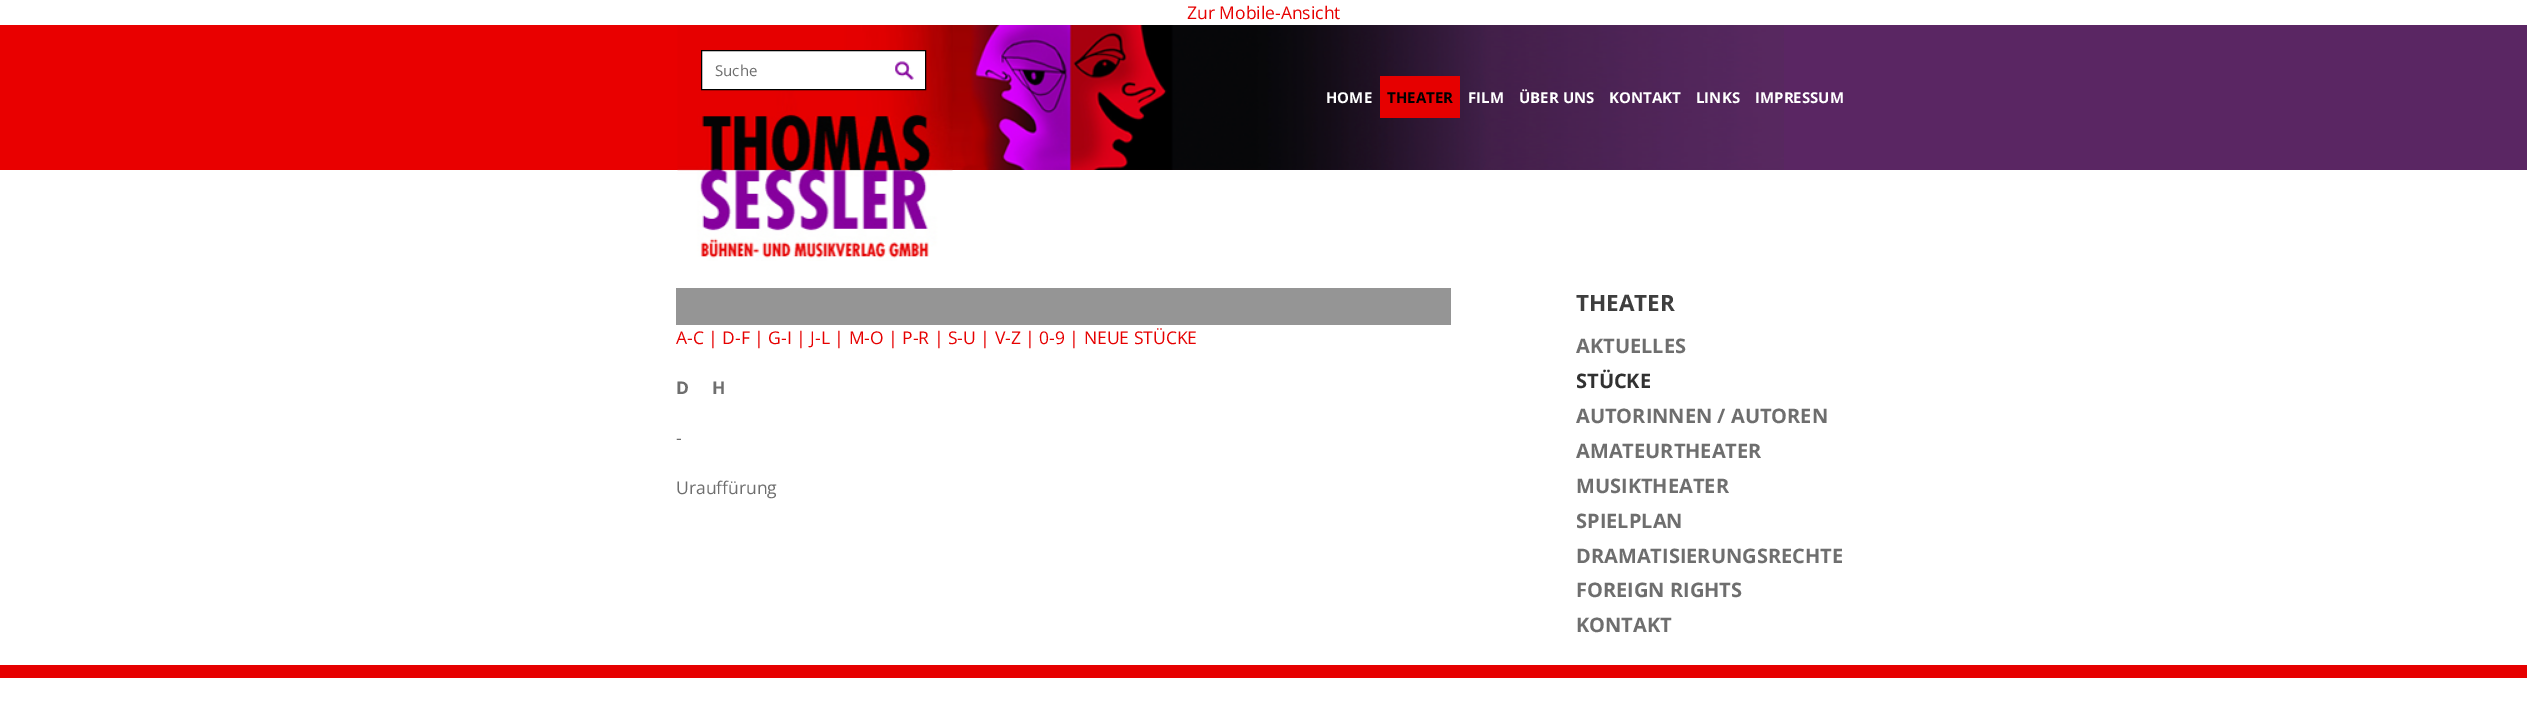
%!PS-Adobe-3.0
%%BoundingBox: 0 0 2527 722
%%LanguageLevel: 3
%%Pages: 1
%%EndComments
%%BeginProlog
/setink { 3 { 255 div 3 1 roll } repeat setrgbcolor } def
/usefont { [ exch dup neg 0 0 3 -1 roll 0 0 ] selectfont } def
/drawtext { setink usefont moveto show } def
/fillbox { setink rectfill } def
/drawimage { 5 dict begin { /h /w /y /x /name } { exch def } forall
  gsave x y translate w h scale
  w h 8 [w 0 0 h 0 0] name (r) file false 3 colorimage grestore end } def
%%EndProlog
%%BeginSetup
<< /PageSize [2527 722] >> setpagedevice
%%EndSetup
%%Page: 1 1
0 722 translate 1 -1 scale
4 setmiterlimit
0 0 2527 722 255 255 255 fillbox
(Zur Mobile-Ansicht) 1187 19 /OpenSans-Regular 17.5 230 0 0 drawtext
(assets/img1.rgb) 0 25 2527 145 drawimage
(assets/img2.rgb) 952 25 832 145 drawimage
(assets/img3.rgb) 677 25 276 236 drawimage
255 255 255 setink
701.5 50.5 moveto 925.5 50.5 lineto 925.5 89.5 lineto 701.5 89.5 lineto closepath gsave fill grestore
0 0 0 setink
stroke
(Suche) 715 76 /OpenSans-Regular 15 110 110 110 drawtext
(assets/img4.rgb) 895 61 19 19 drawimage
(HOME) 1326 103 /OpenSans-Bold 15 255 255 255 drawtext
1380 76 80 42 230 0 0 fillbox
(THEATER) 1387 103 /OpenSans-Bold 15 0 0 0 drawtext
(FILM) 1468 103 /OpenSans-Bold 15 255 255 255 drawtext
(ÜBER UNS) 1519 103 /OpenSans-Bold 15 255 255 255 drawtext
(KONTAKT) 1609 103 /OpenSans-Bold 15 255 255 255 drawtext
(LINKS) 1696 103 /OpenSans-Bold 15 255 255 255 drawtext
(IMPRESSUM) 1755 103 /OpenSans-Bold 15 255 255 255 drawtext
676 288 775 37 149 149 149 fillbox
(A-C | D-F | G-I | J-L | M-O | P-R | S-U | V-Z | 0-9 | NEUE STÜCKE) 676 344 /OpenSans-Regular 17.5 230 0 0 drawtext
(D) 676 394 /OpenSans-Bold 17.5 110 110 110 drawtext
(H) 712 394 /OpenSans-Bold 17.5 110 110 110 drawtext
(-) 676 444 /OpenSans-Regular 17.5 110 110 110 drawtext
(Urauffürung) 676 494 /OpenSans-Regular 17.5 110 110 110 drawtext
(THEATER) 1576 311 /OpenSans-Bold 22.5 62 62 62 drawtext
(AKTUELLES) 1576 353 /OpenSans-Bold 20 110 110 110 drawtext
(STÜCKE) 1576 388 /OpenSans-Bold 20 49 49 49 drawtext
(AUTORINNEN / AUTOREN) 1576 423 /OpenSans-Bold 20 110 110 110 drawtext
(AMATEURTHEATER) 1576 458 /OpenSans-Bold 20 110 110 110 drawtext
(MUSIKTHEATER) 1576 493 /OpenSans-Bold 20 110 110 110 drawtext
(SPIELPLAN) 1576 528 /OpenSans-Bold 20 110 110 110 drawtext
(DRAMATISIERUNGSRECHTE) 1576 563 /OpenSans-Bold 20 110 110 110 drawtext
(FOREIGN RIGHTS) 1576 597 /OpenSans-Bold 20 110 110 110 drawtext
(KONTAKT) 1576 632 /OpenSans-Bold 20 110 110 110 drawtext
0 665 2527 13 230 0 0 fillbox
showpage
%%EOF
